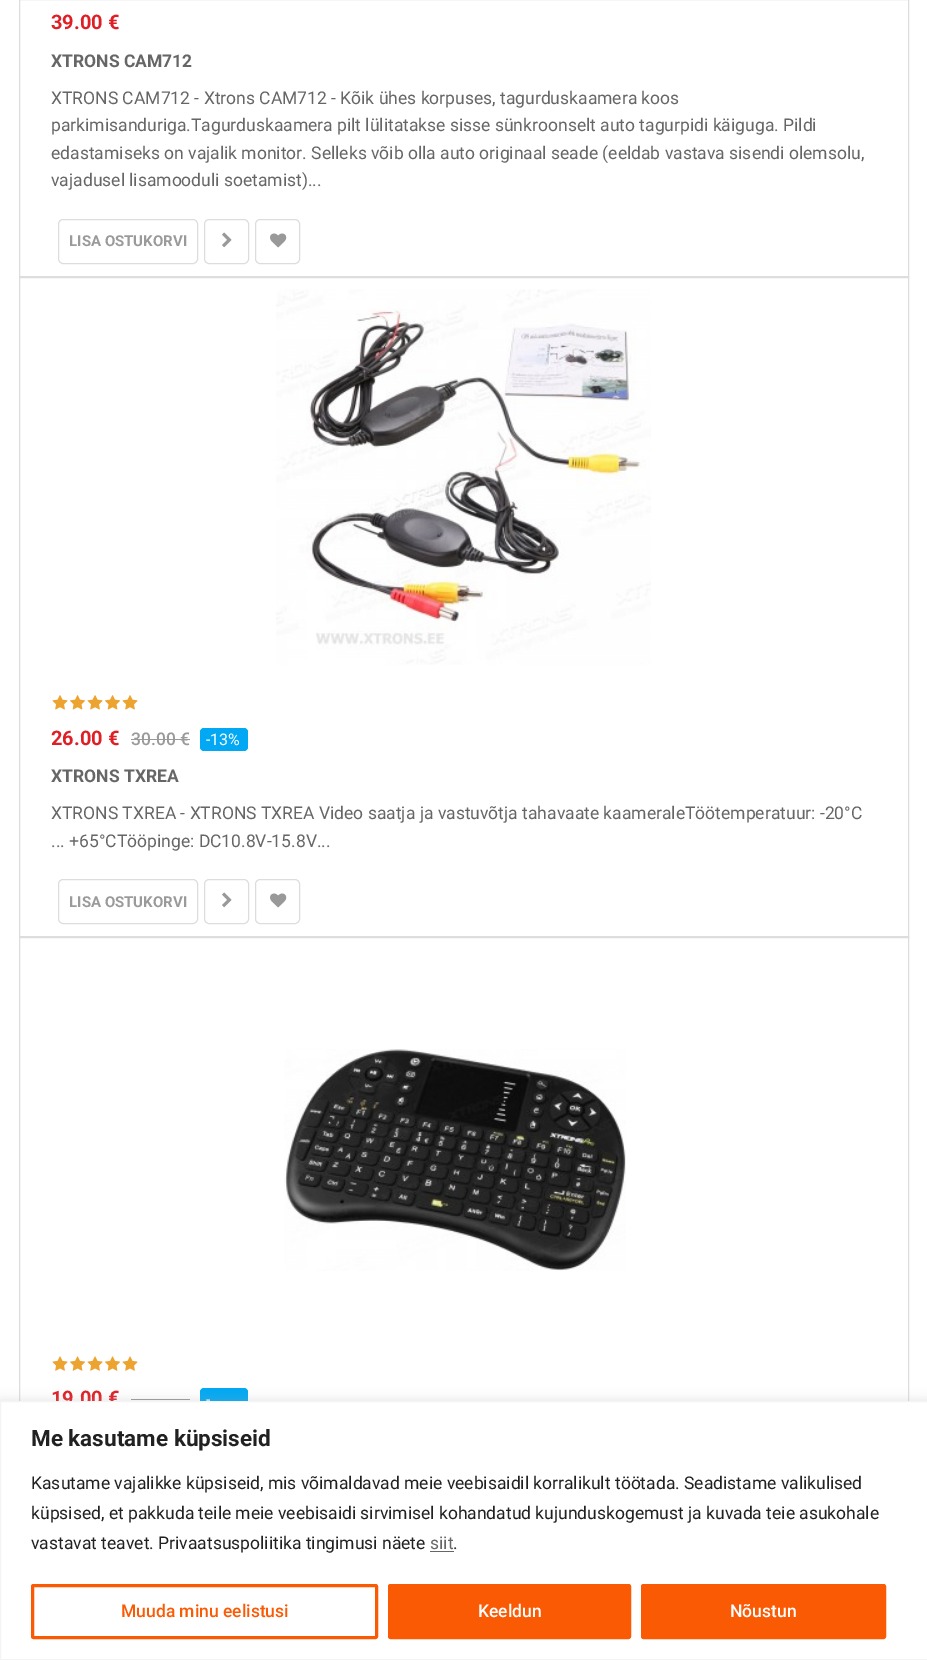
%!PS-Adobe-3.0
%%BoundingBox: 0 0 927 1660
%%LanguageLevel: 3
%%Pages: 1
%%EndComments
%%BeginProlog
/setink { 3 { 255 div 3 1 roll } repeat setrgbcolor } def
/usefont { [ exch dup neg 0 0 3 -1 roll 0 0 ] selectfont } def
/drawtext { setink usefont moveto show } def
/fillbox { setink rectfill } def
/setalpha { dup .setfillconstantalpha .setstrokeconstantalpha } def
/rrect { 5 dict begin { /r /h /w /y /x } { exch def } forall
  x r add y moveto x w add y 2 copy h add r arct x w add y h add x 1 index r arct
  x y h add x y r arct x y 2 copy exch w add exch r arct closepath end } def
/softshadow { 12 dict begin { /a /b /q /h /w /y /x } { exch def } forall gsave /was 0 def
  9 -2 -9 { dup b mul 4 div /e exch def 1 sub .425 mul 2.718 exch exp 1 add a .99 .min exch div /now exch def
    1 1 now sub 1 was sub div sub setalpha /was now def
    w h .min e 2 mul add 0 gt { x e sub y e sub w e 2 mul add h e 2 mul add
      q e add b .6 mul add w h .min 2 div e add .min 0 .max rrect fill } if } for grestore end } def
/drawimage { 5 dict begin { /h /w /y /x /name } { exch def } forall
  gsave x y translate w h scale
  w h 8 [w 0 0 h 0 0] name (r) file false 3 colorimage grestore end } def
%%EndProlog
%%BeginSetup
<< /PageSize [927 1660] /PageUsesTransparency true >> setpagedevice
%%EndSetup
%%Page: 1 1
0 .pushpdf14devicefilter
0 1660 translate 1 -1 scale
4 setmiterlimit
0 0 927 1660 255 255 255 fillbox
221 221 221 setink
19.5 -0.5 889 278 rectstroke
(39.00 €) 51 29 /Roboto-Bold 20 223 31 38 drawtext
(XTRONS CAM712) 51 67 /Roboto-Bold 17.5 102 102 102 drawtext
(XTRONS CAM712 - Xtrons CAM712 - Kõik ühes korpuses, tagurduskaamera koos) 51 104 /Roboto-Regular 17.5 102 102 102 drawtext
(parkimisanduriga.Tagurduskaamera pilt lülitatakse sisse sünkroonselt auto tagurpidi käiguga. Pildi) 51 131 /Roboto-Regular 17.5 102 102 102 drawtext
(edastamiseks on vajalik monitor. Selleks võib olla auto originaal seade \(eeldab vastava sisendi olemsolu,) 51 159 /Roboto-Regular 17.5 102 102 102 drawtext
(vajadusel lisamooduli soetamist\)...) 51 186 /Roboto-Regular 17.5 102 102 102 drawtext
221 221 221 setink
58.5 219.5 139 44 4.5 rrect stroke
(LISA OSTUKORVI) 69 246 /Roboto-Bold 15 154 154 154 drawtext
221 221 221 setink
204.5 219.5 44 44 4.5 rrect stroke
(assets/img1.rgb) 222 232 10 16 drawimage
255.5 219.5 44 44 4.5 rrect stroke
(assets/img2.rgb) 270 233 17 15 drawimage
19.5 276.5 889 661 rectstroke
(assets/img3.rgb) 276 289 375 376 drawimage
(assets/img4.rgb) 52 695 16 15 drawimage
(assets/img5.rgb) 70 695 15 15 drawimage
(assets/img4.rgb) 87 695 16 15 drawimage
(assets/img5.rgb) 105 695 15 15 drawimage
(assets/img4.rgb) 122 695 16 15 drawimage
(26.00 €) 51 745 /Roboto-Bold 20 223 31 38 drawtext
(30.00 €) 131 745 /Roboto-Medium 17.5 154 154 154 drawtext
131 739 59 1 154 154 154 fillbox
2 168 243 setink
200 728 48 23 4 rrect fill
(-13%) 206 745 /Roboto-Regular 16 255 255 255 drawtext
(XTRONS TXREA) 51 782 /Roboto-Bold 17.5 102 102 102 drawtext
(XTRONS TXREA - XTRONS TXREA Video saatja ja vastuvõtja tahavaate kaameraleTöötemperatuur: -20°C) 51 819 /Roboto-Regular 17.5 102 102 102 drawtext
(... +65°CTööpinge: DC10.8V-15.8V...) 51 847 /Roboto-Regular 17.5 102 102 102 drawtext
221 221 221 setink
58.5 879.5 139 44 4.5 rrect stroke
(LISA OSTUKORVI) 69 907 /Roboto-Bold 15 154 154 154 drawtext
221 221 221 setink
204.5 879.5 44 44 4.5 rrect stroke
(assets/img1.rgb) 222 892 10 16 drawimage
255.5 879.5 44 44 4.5 rrect stroke
(assets/img2.rgb) 270 893 17 15 drawimage
19.5 936.5 889 634 rectstroke
(assets/img6.rgb) 284 1049 342 222 drawimage
(assets/img7.rgb) 52 1356 16 15 drawimage
(assets/img8.rgb) 70 1356 15 15 drawimage
(assets/img7.rgb) 87 1356 16 15 drawimage
(assets/img8.rgb) 105 1356 15 15 drawimage
(assets/img7.rgb) 122 1356 16 15 drawimage
(19.00 €) 51 1405 /Roboto-Bold 20 223 31 38 drawtext
131 1399 59 1 154 154 154 fillbox
2 168 243 setink
200 1388 48 23 4 rrect fill
(-) 206 1405 /Roboto-Regular 16 255 255 255 drawtext
172 171 171 setink
0 1400 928 259 0 6 0.3 softshadow
255 255 255 setink
0.5 1401.5 moveto 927.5 1401.5 lineto 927.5 1659.5 lineto 0.5 1659.5 lineto closepath gsave fill grestore
244 244 244 setink
stroke
(Me kasutame küpsiseid) 31 1446 /Roboto-Bold 22.5 33 33 33 drawtext
(Kasutame vajalikke küpsiseid, mis võimaldavad meie veebisaidil korralikult töötada. Seadistame valikulised) 31 1489 /Roboto-Regular 17.5 33 33 33 drawtext
(küpsised, et pakkuda teile meie veebisaidi sirvimisel kohandatud kujunduskogemust ja kuvada teie asukohale) 31 1519 /Roboto-Regular 17.5 33 33 33 drawtext
(vastavat teavet. Privaatsuspoliitika tingimusi näete) 31 1549 /Roboto-Regular 17.5 33 33 33 drawtext
(siit) 430 1549 /Roboto-Regular 17.5 102 102 102 drawtext
430 1551 24 1 102 102 102 fillbox
(.) 453 1549 /Roboto-Regular 17.5 33 33 33 drawtext
251 90 4 setink
3 setlinewidth
32.5 1585.5 344 52 1 rrect stroke
(Muuda minu eelistusi) 121 1617 /Roboto-Medium 17.5 251 90 4 drawtext
389.5 1585.5 240 52 1 rrect gsave fill grestore
stroke
(Keeldun) 478 1617 /Roboto-Medium 17.5 255 255 255 drawtext
251 90 4 setink
642.5 1585.5 242 52 1 rrect gsave fill grestore
stroke
(Nõustun) 730 1617 /Roboto-Medium 17.5 255 255 255 drawtext
.poppdf14devicefilter showpage
%%EOF
